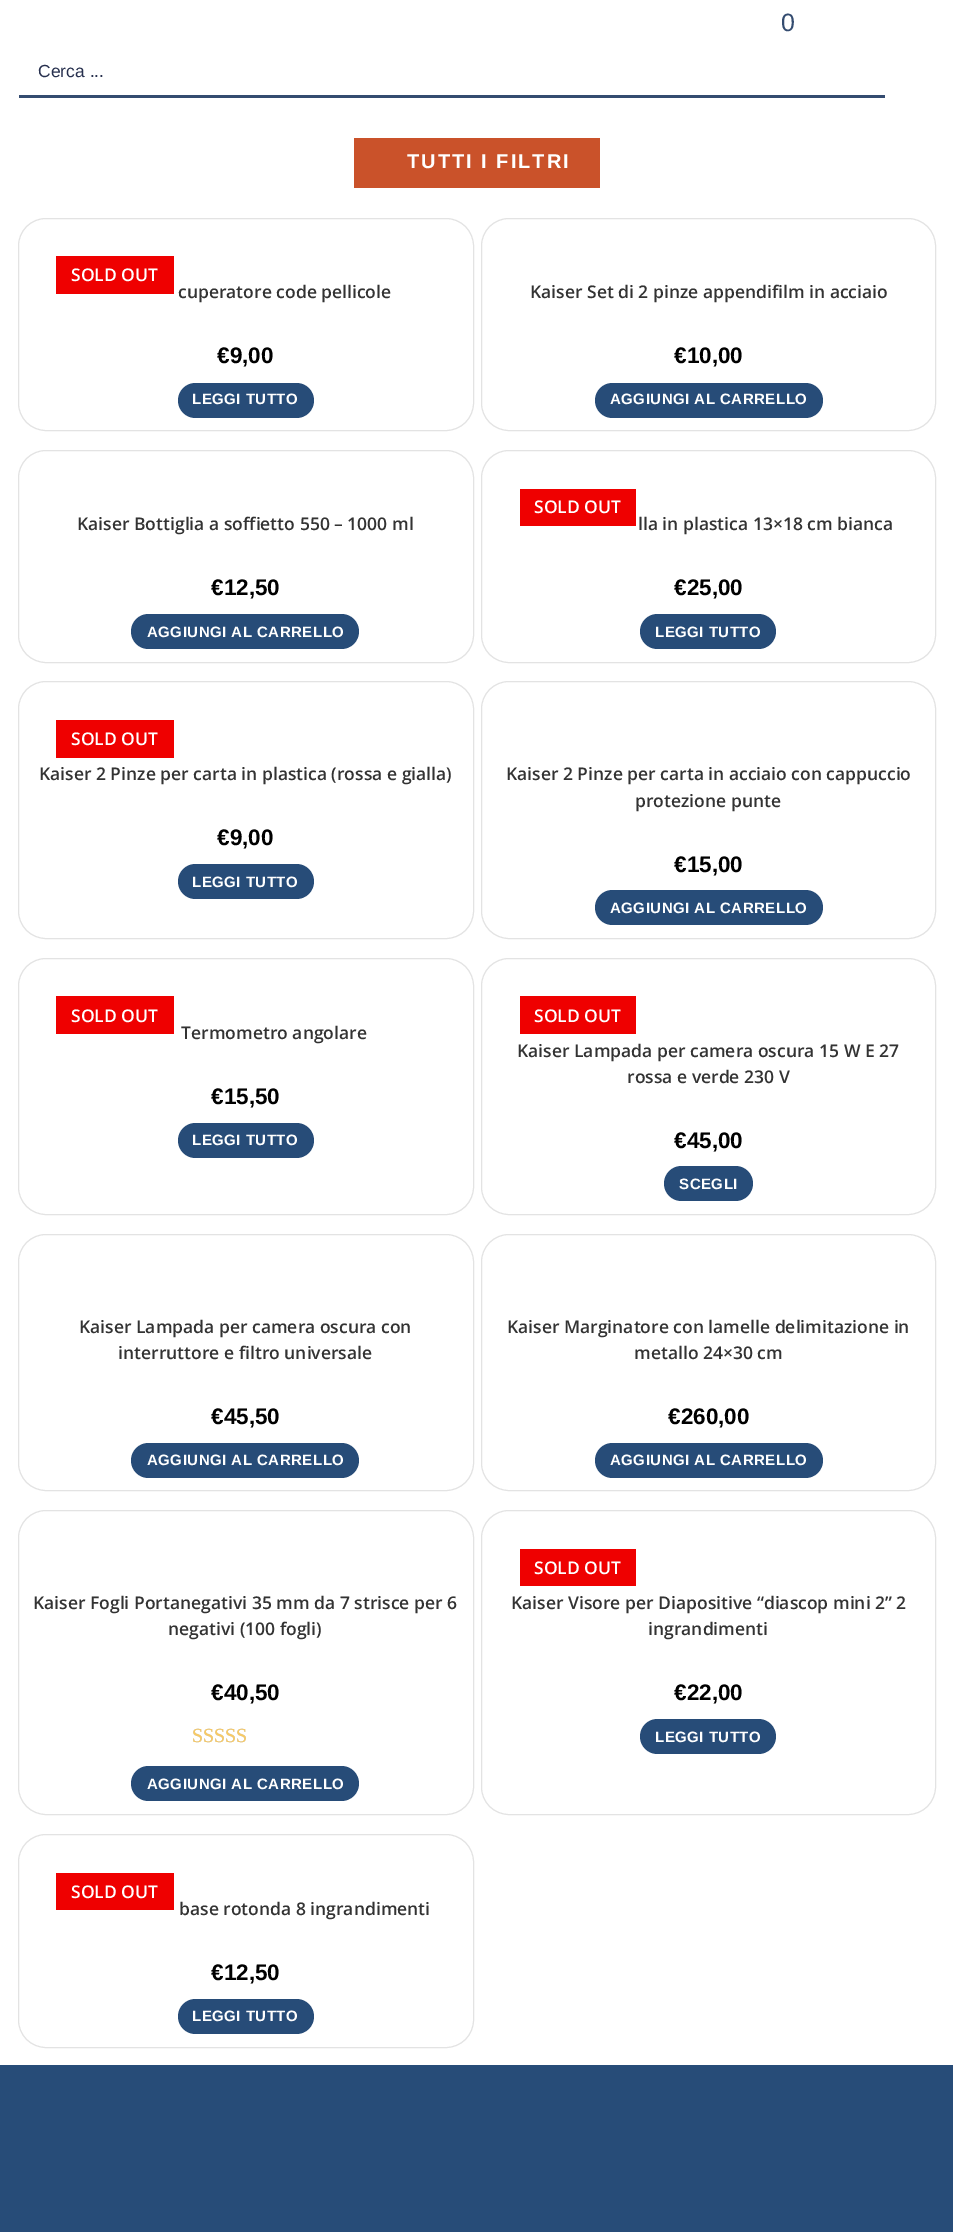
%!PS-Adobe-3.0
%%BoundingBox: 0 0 953 2232
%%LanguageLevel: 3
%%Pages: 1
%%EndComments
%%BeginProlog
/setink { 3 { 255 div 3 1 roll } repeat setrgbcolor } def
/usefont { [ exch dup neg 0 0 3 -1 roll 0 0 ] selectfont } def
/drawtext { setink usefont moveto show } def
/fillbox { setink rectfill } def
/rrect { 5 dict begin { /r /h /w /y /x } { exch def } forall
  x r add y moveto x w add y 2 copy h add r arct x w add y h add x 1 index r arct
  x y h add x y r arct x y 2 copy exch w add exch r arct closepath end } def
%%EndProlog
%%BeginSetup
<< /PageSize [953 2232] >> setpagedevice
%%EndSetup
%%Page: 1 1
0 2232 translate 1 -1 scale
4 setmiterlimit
0 0 953 2232 255 255 255 fillbox
(0) 781 31 /LiberationSans-Regular 25 52 76 112 drawtext
19 95 866 3 52 76 112 fillbox
(Cerca ...) 38 77 /LiberationSans-Regular 17.5 39 48 78 drawtext
354 138 246 50 202 82 42 fillbox
/LiberationSans-Bold 20 usefont
255 255 255 setink
407 168 moveto 2 0 (TUTTI I FILTRI) ashow
227 227 227 setink
18.5 218.5 455 212 27.5 rrect stroke
56 256 118 38 239 0 0 fillbox
(SOLD OUT) 71 281 /OpenSans-SemiBold 17.5 255 255 255 drawtext
(cuperatore code pellicole) 178 298 /OpenSans-SemiBold 17.5 51 51 51 drawtext
(€9,00) 217 363 /LiberationSans-Bold 22.5 0 0 0 drawtext
39 76 120 setink
178 383 136 35 17.5 rrect fill
/LiberationSans-Bold 15 usefont
255 255 255 setink
192 404 moveto 0.5 0 (LEGGI TUTTO) ashow
227 227 227 setink
481.5 218.5 454 212 27.5 rrect stroke
(Kaiser Set di 2 pinze appendifilm in acciaio) 530 298 /OpenSans-SemiBold 17.5 51 51 51 drawtext
(€10,00) 674 363 /LiberationSans-Bold 22.5 0 0 0 drawtext
39 76 120 setink
595 383 228 35 17.5 rrect fill
/LiberationSans-Bold 15 usefont
255 255 255 setink
610 404 moveto 0.5 0 (AGGIUNGI AL CARRELLO) ashow
227 227 227 setink
18.5 450.5 455 212 27.5 rrect stroke
(Kaiser Bottiglia a soffietto 550 – 1000 ml) 77 530 /OpenSans-SemiBold 17.5 51 51 51 drawtext
(€12,50) 211 595 /LiberationSans-Bold 22.5 0 0 0 drawtext
39 76 120 setink
131 614 228 35 17.5 rrect fill
/LiberationSans-Bold 15 usefont
255 255 255 setink
147 637 moveto 0.5 0 (AGGIUNGI AL CARRELLO) ashow
227 227 227 setink
481.5 450.5 454 212 27.5 rrect stroke
520 489 116 37 239 0 0 fillbox
(SOLD OUT) 534 513 /OpenSans-SemiBold 17.5 255 255 255 drawtext
(lla in plastica 13×18 cm bianca) 638 530 /OpenSans-SemiBold 17.5 51 51 51 drawtext
(€25,00) 674 595 /LiberationSans-Bold 22.5 0 0 0 drawtext
39 76 120 setink
640 614 136 35 17.5 rrect fill
/LiberationSans-Bold 15 usefont
255 255 255 setink
655 637 moveto 0.5 0 (LEGGI TUTTO) ashow
227 227 227 setink
18.5 681.5 455 257 27.5 rrect stroke
56 720 118 38 239 0 0 fillbox
(SOLD OUT) 71 745 /OpenSans-SemiBold 17.5 255 255 255 drawtext
(Kaiser 2 Pinze per carta in plastica \(rossa e gialla\)) 39 780 /OpenSans-SemiBold 17.5 51 51 51 drawtext
(€9,00) 217 845 /LiberationSans-Bold 22.5 0 0 0 drawtext
39 76 120 setink
178 864 136 35 17.5 rrect fill
/LiberationSans-Bold 15 usefont
255 255 255 setink
192 887 moveto 0.5 0 (LEGGI TUTTO) ashow
227 227 227 setink
481.5 681.5 454 257 27.5 rrect stroke
(Kaiser 2 Pinze per carta in acciaio con cappuccio) 506 780 /OpenSans-SemiBold 17.5 51 51 51 drawtext
(protezione punte) 635 807 /OpenSans-SemiBold 17.5 51 51 51 drawtext
(€15,00) 674 872 /LiberationSans-Bold 22.5 0 0 0 drawtext
39 76 120 setink
595 890 228 35 17.5 rrect fill
/LiberationSans-Bold 15 usefont
255 255 255 setink
610 913 moveto 0.5 0 (AGGIUNGI AL CARRELLO) ashow
227 227 227 setink
18.5 958.5 455 256 27.5 rrect stroke
56 996 118 38 239 0 0 fillbox
(SOLD OUT) 71 1022 /OpenSans-SemiBold 17.5 255 255 255 drawtext
(Termometro angolare) 181 1039 /OpenSans-SemiBold 17.5 51 51 51 drawtext
(€15,50) 211 1104 /LiberationSans-Bold 22.5 0 0 0 drawtext
39 76 120 setink
178 1123 136 35 17.5 rrect fill
/LiberationSans-Bold 15 usefont
255 255 255 setink
192 1145 moveto 0.5 0 (LEGGI TUTTO) ashow
227 227 227 setink
481.5 958.5 454 256 27.5 rrect stroke
520 996 116 38 239 0 0 fillbox
(SOLD OUT) 534 1022 /OpenSans-SemiBold 17.5 255 255 255 drawtext
(Kaiser Lampada per camera oscura 15 W E 27) 517 1057 /OpenSans-SemiBold 17.5 51 51 51 drawtext
(rossa e verde 230 V) 627 1083 /OpenSans-SemiBold 17.5 51 51 51 drawtext
(€45,00) 674 1148 /LiberationSans-Bold 22.5 0 0 0 drawtext
39 76 120 setink
664 1166 89 35 17.5 rrect fill
/LiberationSans-Bold 15 usefont
255 255 255 setink
679 1189 moveto 0.5 0 (SCEGLI) ashow
227 227 227 setink
18.5 1234.5 455 256 27.5 rrect stroke
(Kaiser Lampada per camera oscura con) 79 1333 /OpenSans-SemiBold 17.5 51 51 51 drawtext
(interruttore e filtro universale) 118 1359 /OpenSans-SemiBold 17.5 51 51 51 drawtext
(€45,50) 211 1424 /LiberationSans-Bold 22.5 0 0 0 drawtext
39 76 120 setink
131 1443 228 35 17.5 rrect fill
/LiberationSans-Bold 15 usefont
255 255 255 setink
147 1465 moveto 0.5 0 (AGGIUNGI AL CARRELLO) ashow
227 227 227 setink
481.5 1234.5 454 256 27.5 rrect stroke
(Kaiser Marginatore con lamelle delimitazione in) 507 1333 /OpenSans-SemiBold 17.5 51 51 51 drawtext
(metallo 24×30 cm) 634 1359 /OpenSans-SemiBold 17.5 51 51 51 drawtext
(€260,00) 668 1424 /LiberationSans-Bold 22.5 0 0 0 drawtext
39 76 120 setink
595 1443 228 35 17.5 rrect fill
/LiberationSans-Bold 15 usefont
255 255 255 setink
610 1465 moveto 0.5 0 (AGGIUNGI AL CARRELLO) ashow
227 227 227 setink
18.5 1510.5 455 304 27.5 rrect stroke
(Kaiser Fogli Portanegativi 35 mm da 7 strisce per 6) 33 1609 /OpenSans-SemiBold 17.5 51 51 51 drawtext
(negativi \(100 fogli\)) 168 1635 /OpenSans-SemiBold 17.5 51 51 51 drawtext
(€40,50) 211 1700 /LiberationSans-Bold 22.5 0 0 0 drawtext
(SSSSS) 192 1742 /LiberationSerif-Regular 20 191 191 191 drawtext
(SSSSS) 192 1742 /LiberationSerif-Regular 20 249 202 99 drawtext
39 76 120 setink
131 1766 228 35 17.5 rrect fill
/LiberationSans-Bold 15 usefont
255 255 255 setink
147 1789 moveto 0.5 0 (AGGIUNGI AL CARRELLO) ashow
227 227 227 setink
481.5 1510.5 454 304 27.5 rrect stroke
520 1549 116 37 239 0 0 fillbox
(SOLD OUT) 534 1574 /OpenSans-SemiBold 17.5 255 255 255 drawtext
(Kaiser Visore per Diapositive “diascop mini 2” 2) 511 1609 /OpenSans-SemiBold 17.5 51 51 51 drawtext
(ingrandimenti) 648 1635 /OpenSans-SemiBold 17.5 51 51 51 drawtext
(€22,00) 674 1700 /LiberationSans-Bold 22.5 0 0 0 drawtext
39 76 120 setink
640 1719 136 35 17.5 rrect fill
/LiberationSans-Bold 15 usefont
255 255 255 setink
655 1742 moveto 0.5 0 (LEGGI TUTTO) ashow
227 227 227 setink
18.5 1834.5 455 213 27.5 rrect stroke
56 1873 118 37 239 0 0 fillbox
(SOLD OUT) 71 1898 /OpenSans-SemiBold 17.5 255 255 255 drawtext
(base rotonda 8 ingrandimenti) 179 1915 /OpenSans-SemiBold 17.5 51 51 51 drawtext
(€12,50) 211 1980 /LiberationSans-Bold 22.5 0 0 0 drawtext
39 76 120 setink
178 1999 136 35 17.5 rrect fill
/LiberationSans-Bold 15 usefont
255 255 255 setink
192 2021 moveto 0.5 0 (LEGGI TUTTO) ashow
0 2065 953 167 39 76 120 fillbox
showpage
%%EOF
